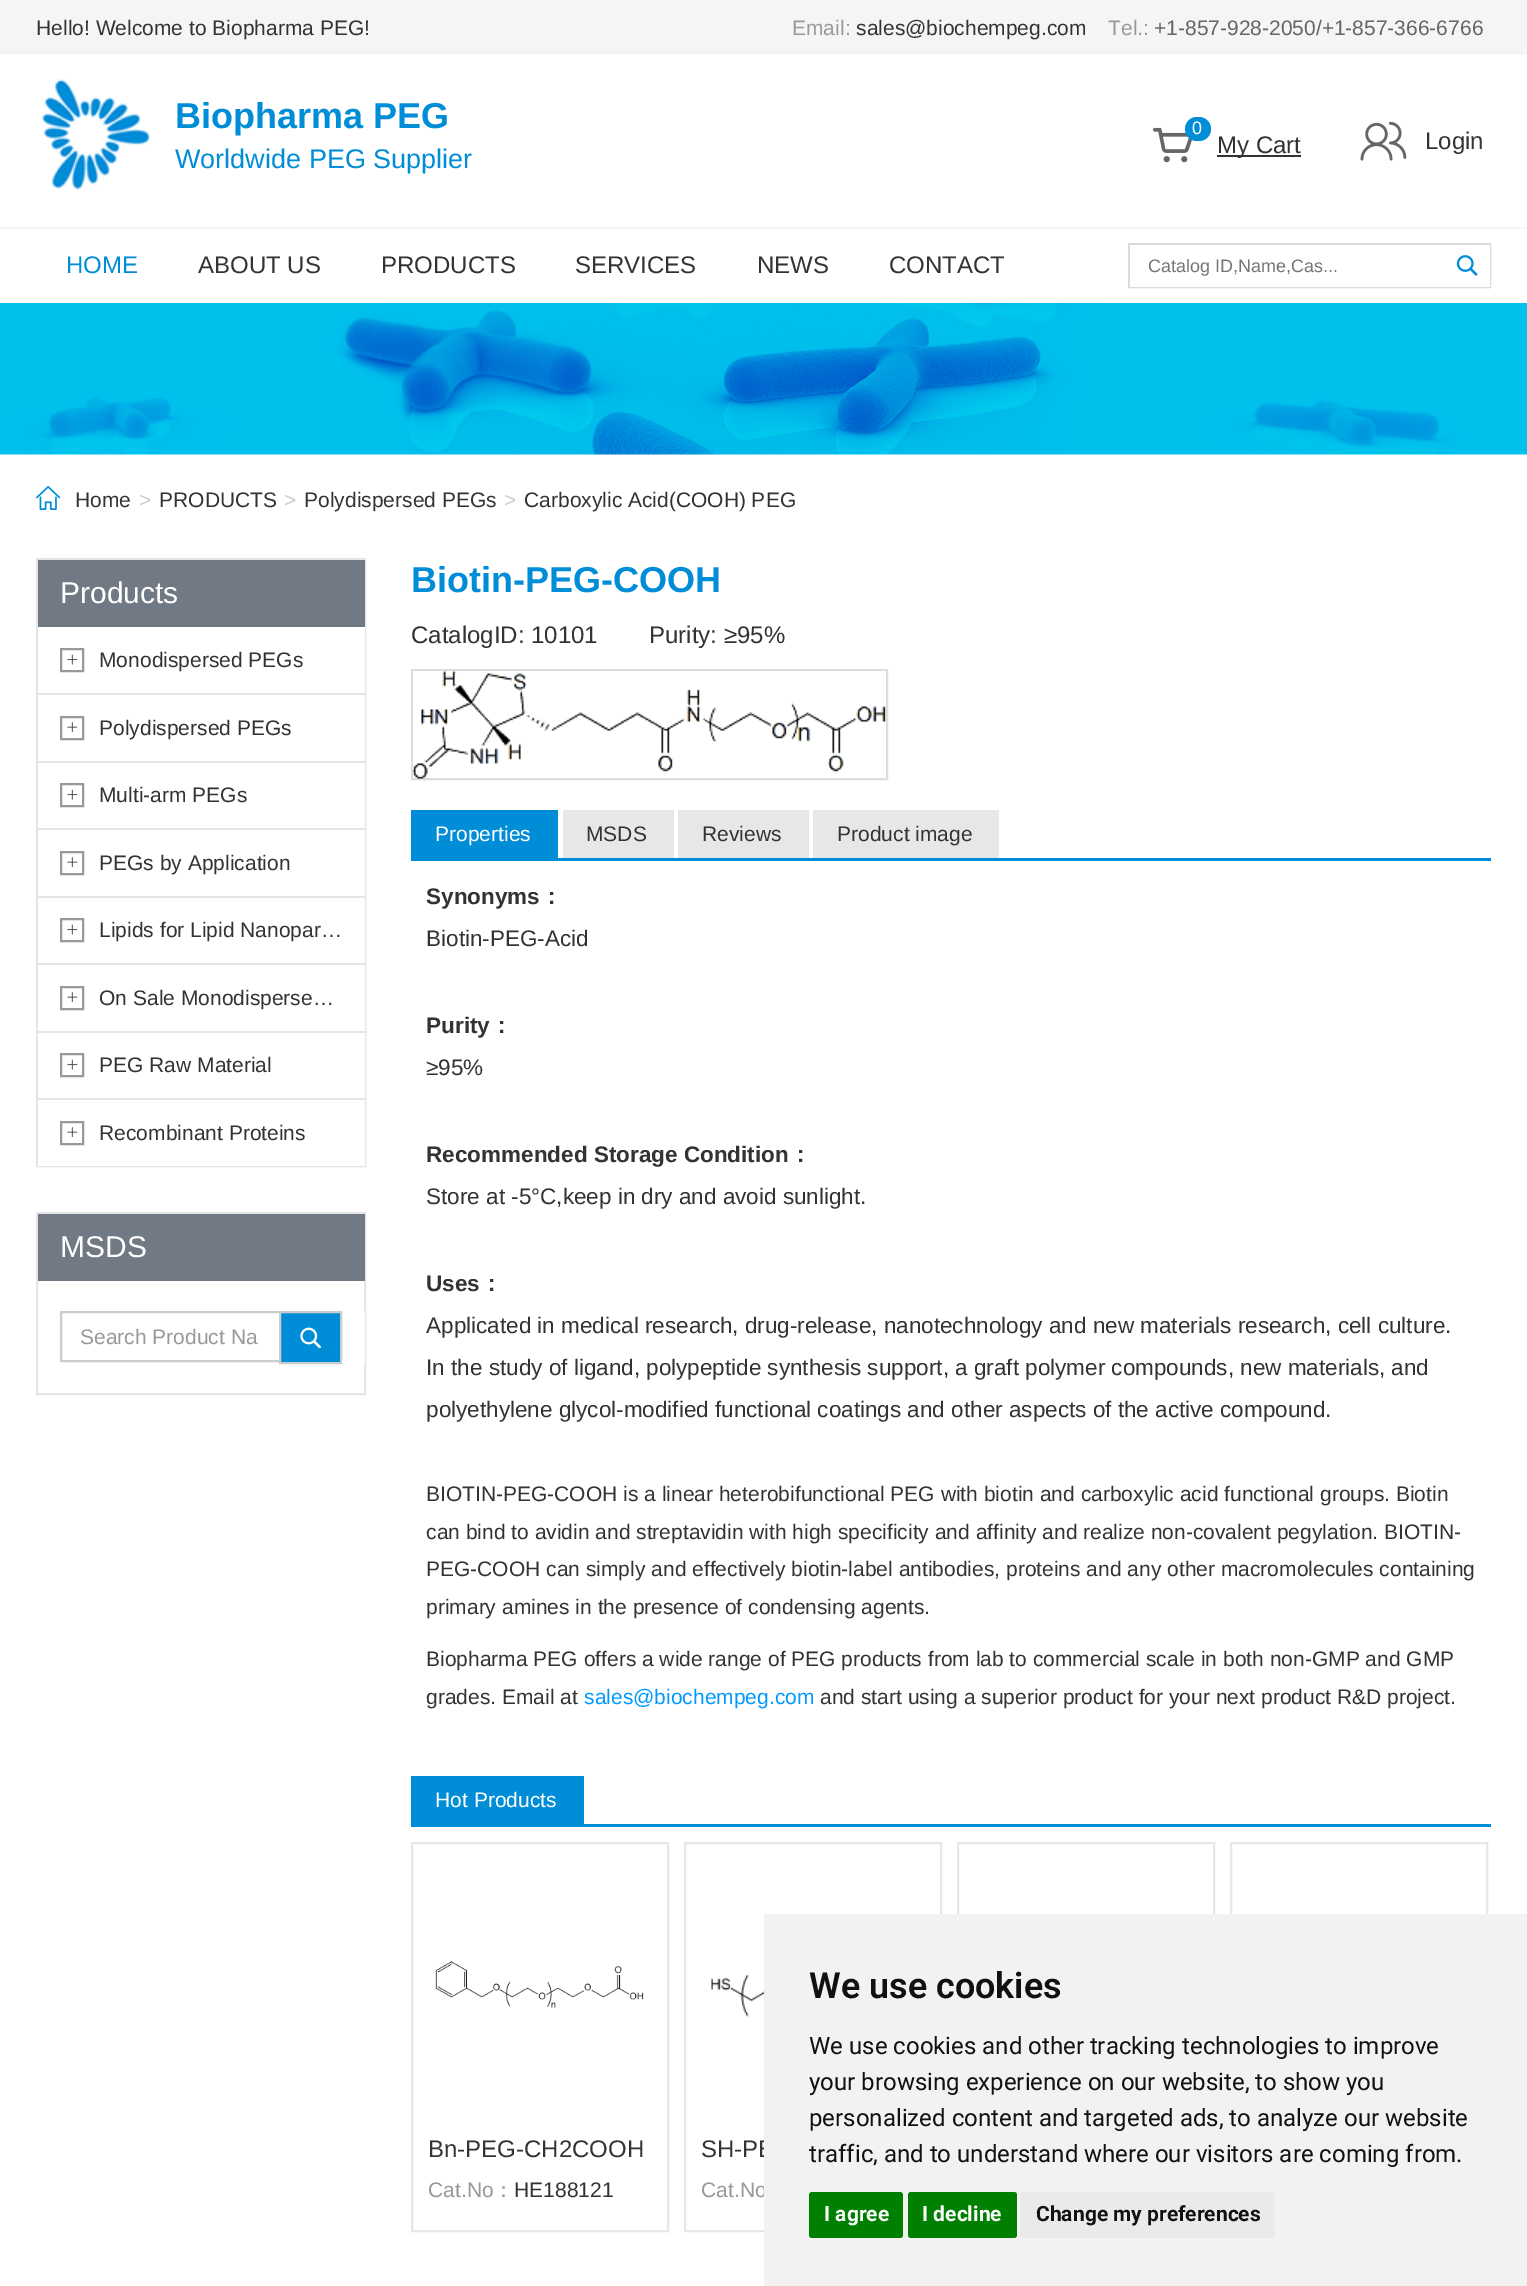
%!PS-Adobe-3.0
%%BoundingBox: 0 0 1527 2286
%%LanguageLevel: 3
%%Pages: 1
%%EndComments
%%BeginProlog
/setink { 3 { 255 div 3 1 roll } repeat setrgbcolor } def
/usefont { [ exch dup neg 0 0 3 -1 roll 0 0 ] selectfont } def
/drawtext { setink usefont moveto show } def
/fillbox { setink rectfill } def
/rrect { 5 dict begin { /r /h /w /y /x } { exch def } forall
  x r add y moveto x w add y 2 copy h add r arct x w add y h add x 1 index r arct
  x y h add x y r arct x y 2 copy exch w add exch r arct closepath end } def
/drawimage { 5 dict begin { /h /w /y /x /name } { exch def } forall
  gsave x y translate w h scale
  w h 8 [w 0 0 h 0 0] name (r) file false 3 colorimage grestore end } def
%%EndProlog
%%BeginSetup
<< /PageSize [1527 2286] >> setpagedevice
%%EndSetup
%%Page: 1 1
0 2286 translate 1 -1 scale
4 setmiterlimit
0 0 1527 2286 255 255 255 fillbox
0 0 1527 53 245 245 245 fillbox
0 53 1527 1 238 238 238 fillbox
(Hello! Welcome to Biopharma PEG!) 36 35 /LiberationSans-Regular 21 51 51 51 drawtext
(Email:) 792 35 /LiberationSans-Regular 21 153 153 153 drawtext
(sales@biochempeg.com) 856 35 /LiberationSans-Regular 21 51 51 51 drawtext
(Tel.:) 1108 35 /LiberationSans-Regular 21 153 153 153 drawtext
(+1-857-928-2050/+1-857-366-6766) 1154 35 /LiberationSans-Regular 21 102 102 102 drawtext
(assets/img1.rgb) 41 79 110 111 drawimage
(Biopharma PEG) 175 128 /LiberationSans-Bold 36 0 141 215 drawtext
(Worldwide PEG Supplier) 175 168 /LiberationSans-Regular 27 0 141 215 drawtext
(assets/img2.rgb) 1153 127 40 36 drawimage
1185 117 26 24 12 rrect fill
(0) 1192 134 /LiberationSans-Regular 18 255 255 255 drawtext
1217 155 84 2 51 51 51 fillbox
(My Cart) 1217 153 /LiberationSans-Regular 24 51 51 51 drawtext
(assets/img3.rgb) 1360 121 47 40 drawimage
(Login) 1425 149 /LiberationSans-Regular 24 51 51 51 drawtext
0 227 1527 2 246 246 246 fillbox
(HOME) 66 273 /LiberationSans-Regular 24 0 141 215 drawtext
(ABOUT US) 198 273 /LiberationSans-Regular 24 51 51 51 drawtext
(PRODUCTS) 381 273 /LiberationSans-Regular 24 51 51 51 drawtext
(SERVICES) 575 273 /LiberationSans-Regular 24 51 51 51 drawtext
(NEWS) 757 273 /LiberationSans-Regular 24 51 51 51 drawtext
(CONTACT) 889 273 /LiberationSans-Regular 24 51 51 51 drawtext
219 219 219 setink
2 setlinewidth
1129 244 361 43 rectstroke
1130 245 360 42 255 255 255 fillbox
(Catalog ID,Name,Cas...) 1148 272 /LiberationSans-Regular 18 117 117 117 drawtext
(assets/img4.rgb) 1456 255 22 21 drawimage
(assets/img5.rgb) 0 303 1527 152 drawimage
(assets/img6.rgb) 36 486 25 24 drawimage
(Home) 75 507 /LiberationSans-Regular 21 51 51 51 drawtext
(>) 139 507 /LiberationSans-Regular 21 204 204 204 drawtext
(PRODUCTS) 159 507 /LiberationSans-Regular 21 51 51 51 drawtext
(>) 284 507 /LiberationSans-Regular 21 204 204 204 drawtext
(Polydispersed PEGs) 304 507 /LiberationSans-Regular 21 51 51 51 drawtext
(>) 504 507 /LiberationSans-Regular 21 204 204 204 drawtext
(Carboxylic Acid\(COOH\) PEG) 524 507 /LiberationSans-Regular 21 51 51 51 drawtext
229 229 229 setink
37 559 328 607 rectstroke
38 560 327 67 113 121 133 fillbox
(Products) 60 603 /LiberationSans-Regular 30 255 255 255 drawtext
38 627 327 539 255 255 255 fillbox
38 693 327 2 229 229 229 fillbox
153 153 153 setink
61 649 22 22 rectstroke
(Monodispersed PEGs) 99 667 /LiberationSans-Regular 21 51 51 51 drawtext
(assets/img7.rgb) 67 654 11 11 drawimage
38 761 327 2 229 229 229 fillbox
153 153 153 setink
61 717 22 22 rectstroke
(Polydispersed PEGs) 99 735 /LiberationSans-Regular 21 51 51 51 drawtext
(assets/img8.rgb) 67 722 11 10 drawimage
38 828 327 2 229 229 229 fillbox
153 153 153 setink
61 784 22 22 rectstroke
(Multi-arm PEGs) 99 802 /LiberationSans-Regular 21 51 51 51 drawtext
(assets/img7.rgb) 67 789 11 11 drawimage
38 896 327 2 229 229 229 fillbox
153 153 153 setink
61 852 22 22 rectstroke
(PEGs by Application) 99 870 /LiberationSans-Regular 21 51 51 51 drawtext
(assets/img8.rgb) 67 857 11 10 drawimage
38 963 327 2 229 229 229 fillbox
153 153 153 setink
61 919 22 22 rectstroke
(Lipids for Lipid Nanopar…) 99 937 /LiberationSans-Regular 21 51 51 51 drawtext
(assets/img7.rgb) 67 924 11 11 drawimage
38 1031 327 2 229 229 229 fillbox
153 153 153 setink
61 987 22 22 rectstroke
(On Sale Monodisperse…) 99 1005 /LiberationSans-Regular 21 51 51 51 drawtext
(assets/img8.rgb) 67 992 11 10 drawimage
38 1098 327 2 229 229 229 fillbox
153 153 153 setink
61 1054 22 22 rectstroke
(PEG Raw Material) 99 1072 /LiberationSans-Regular 21 51 51 51 drawtext
(assets/img7.rgb) 67 1059 11 11 drawimage
153 153 153 setink
61 1122 22 22 rectstroke
(Recombinant Proteins) 99 1140 /LiberationSans-Regular 21 51 51 51 drawtext
(assets/img8.rgb) 67 1127 11 10 drawimage
229 229 229 setink
37 1213 328 181 rectstroke
38 1214 327 67 113 121 133 fillbox
(MSDS) 60 1257 /LiberationSans-Regular 30 255 255 255 drawtext
364 1311 1 53 255 255 255 fillbox
204 204 204 setink
61 1312 219 49 rectstroke
(Search Product Na) 80 1344 /LiberationSans-Regular 21 153 153 153 drawtext
0 141 215 setink
280 1312 moveto 341 1312 lineto 341 1363 lineto 280 1363 lineto closepath gsave fill grestore
204 204 204 setink
stroke
(assets/img9.rgb) 300 1327 21 22 drawimage
(Biotin-PEG-COOH) 411 592 /LiberationSans-Bold 36 0 141 215 drawtext
(CatalogID: 10101) 411 643 /LiberationSans-Regular 24 51 51 51 drawtext
(Purity: ≥95%) 649 643 /LiberationSans-Regular 24 51 51 51 drawtext
221 221 221 setink
412 670 475 109 rectstroke
(assets/img10.rgb) 412 670 474 109 drawimage
411 858 1080 3 0 141 215 fillbox
411 810 147 48 0 141 215 fillbox
(Properties) 435 841 /LiberationSans-Regular 21 255 255 255 drawtext
563 810 111 48 231 231 231 fillbox
(MSDS) 586 841 /LiberationSans-Regular 21 51 51 51 drawtext
678 810 131 48 231 231 231 fillbox
(Reviews) 702 841 /LiberationSans-Regular 21 51 51 51 drawtext
813 810 186 48 231 231 231 fillbox
(Product image) 837 841 /LiberationSans-Regular 21 51 51 51 drawtext
(Synonyms) 426 904 /LiberationSans-Bold 22.5 51 51 51 drawtext
(：) 540 904 /WenQuanYiZenHei-Bold 22.5 51 51 51 drawtext
(Biotin-PEG-Acid) 426 946 /LiberationSans-Regular 22.5 51 51 51 drawtext
(Purity) 426 1033 /LiberationSans-Bold 22.5 51 51 51 drawtext
(：) 490 1033 /WenQuanYiZenHei-Bold 22.5 51 51 51 drawtext
(≥95%) 426 1075 /LiberationSans-Regular 22.5 51 51 51 drawtext
(Recommended Storage Condition) 426 1162 /LiberationSans-Bold 22.5 51 51 51 drawtext
(：) 789 1162 /WenQuanYiZenHei-Bold 22.5 51 51 51 drawtext
(Store at -5°C,keep in dry and avoid sunlight.) 426 1204 /LiberationSans-Regular 22.5 51 51 51 drawtext
(Uses) 426 1291 /LiberationSans-Bold 22.5 51 51 51 drawtext
(：) 480 1291 /WenQuanYiZenHei-Bold 22.5 51 51 51 drawtext
(Applicated in medical research, drug-release, nanotechnology and new materials research, cell culture.) 426 1333 /LiberationSans-Regular 22.5 51 51 51 drawtext
(In the study of ligand, polypeptide synthesis support, a graft polymer compounds, new materials, and) 426 1375 /LiberationSans-Regular 22.5 51 51 51 drawtext
(polyethylene glycol-modified functional coatings and other aspects of the active compound.) 426 1417 /LiberationSans-Regular 22.5 51 51 51 drawtext
(BIOTIN-PEG-COOH is a linear heterobifunctional PEG with biotin and carboxylic acid functional groups. Biotin) 426 1501 /LiberationSans-Regular 21 51 51 51 drawtext
(can bind to avidin and streptavidin with high specificity and affinity and realize non-covalent pegylation. BIOTIN-) 426 1539 /LiberationSans-Regular 21 51 51 51 drawtext
(PEG-COOH can simply and effectively biotin-label antibodies, proteins and any other macromolecules containing) 426 1576 /LiberationSans-Regular 21 51 51 51 drawtext
(primary amines in the presence of condensing agents.) 426 1614 /LiberationSans-Regular 21 51 51 51 drawtext
(Biopharma PEG offers a wide range of PEG products from lab to commercial scale in both non-GMP and GMP) 426 1666 /LiberationSans-Regular 21 51 51 51 drawtext
(grades. Email at) 426 1704 /LiberationSans-Regular 21 51 51 51 drawtext
(sales@biochempeg.com) 584 1704 /LiberationSans-Regular 21 0 153 255 drawtext
(and start using a superior product for your next product R&D project.) 820 1704 /LiberationSans-Regular 21 51 51 51 drawtext
411 1824 1080 3 0 141 215 fillbox
411 1776 173 48 0 141 215 fillbox
(Hot Products) 435 1807 /LiberationSans-Regular 21 255 255 255 drawtext
231 231 231 setink
412 1843 256 388 rectstroke
(assets/img11.rgb) 435 1961 209 47 drawimage
(Bn-PEG-CH2COOH) 428 2157 /LiberationSans-Regular 24 51 51 51 drawtext
(Cat.No) 428 2197 /LiberationSans-Regular 21 153 153 153 drawtext
(：) 493 2197 /WenQuanYiZenHei-Medium 21 153 153 153 drawtext
(HE188121) 514 2197 /LiberationSans-Regular 21 51 51 51 drawtext
231 231 231 setink
685 1843 256 388 rectstroke
(assets/img12.rgb) 711 1974 53 43 drawimage
(SH-PE) 701 2157 /LiberationSans-Regular 24 51 51 51 drawtext
(Cat.No) 701 2197 /LiberationSans-Regular 21 153 153 153 drawtext
231 231 231 setink
958 1843 256 388 rectstroke
1231 1843 256 388 rectstroke
764 1914 763 372 242 242 242 fillbox
(We use cookies) 809 1998 /Roboto-SemiBold 36 17 17 17 drawtext
(We use cookies and other tracking technologies to improve) 809 2054 /Roboto-Regular 24 17 17 17 drawtext
(your browsing experience on our website, to show you) 809 2090 /Roboto-Regular 24 17 17 17 drawtext
(personalized content and targeted ads, to analyze our website) 809 2126 /Roboto-Regular 24 17 17 17 drawtext
(traffic, and to understand where our visitors are coming from.) 809 2162 /Roboto-Regular 24 17 17 17 drawtext
0 128 0 setink
809 2192 94 46 3 rrect fill
(I agree) 824 2221 /Roboto-Bold 21 255 255 255 drawtext
0 128 0 setink
908 2192 109 46 3 rrect fill
(I decline) 922 2221 /Roboto-Bold 21 255 255 255 drawtext
234 234 234 setink
1020 2192 255 46 3 rrect fill
(Change my preferences) 1036 2221 /Roboto-Bold 21 17 17 17 drawtext
showpage
%%EOF
